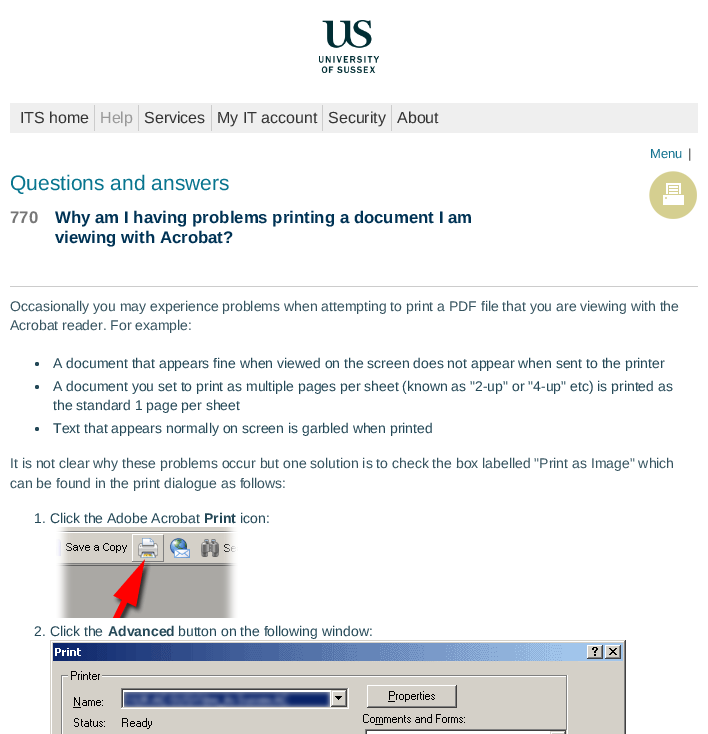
%!PS-Adobe-3.0
%%BoundingBox: 0 0 708 734
%%LanguageLevel: 3
%%Pages: 1
%%EndComments
%%BeginProlog
/setink { 3 { 255 div 3 1 roll } repeat setrgbcolor } def
/usefont { [ exch dup neg 0 0 3 -1 roll 0 0 ] selectfont } def
/drawtext { setink usefont moveto show } def
/fillbox { setink rectfill } def
/disc { newpath 0 360 arc closepath } def
/drawimage { 5 dict begin { /h /w /y /x /name } { exch def } forall
  gsave x y translate w h scale
  w h 8 [w 0 0 h 0 0] name (r) file false 3 colorimage grestore end } def
%%EndProlog
%%BeginSetup
<< /PageSize [708 734] >> setpagedevice
%%EndSetup
%%Page: 1 1
0 734 translate 1 -1 scale
4 setmiterlimit
0 0 708 734 255 255 255 fillbox
(assets/img1.rgb) 319 20 60 53 drawimage
10 103 688 30 239 239 239 fillbox
(ITS home) 20 123 /LiberationSans-Regular 16 51 51 51 drawtext
(Help) 100 123 /LiberationSans-Regular 16 153 153 153 drawtext
94 105 1 26 204 204 204 fillbox
(Services) 144 123 /LiberationSans-Regular 16 51 51 51 drawtext
138 105 1 26 204 204 204 fillbox
(My IT account) 217 123 /LiberationSans-Regular 16 51 51 51 drawtext
211 105 1 26 204 204 204 fillbox
(Security) 328 123 /LiberationSans-Regular 16 51 51 51 drawtext
322 105 1 26 204 204 204 fillbox
(About) 397 123 /LiberationSans-Regular 16 51 51 51 drawtext
391 105 1 26 204 204 204 fillbox
(Menu) 650 158 /LiberationSans-Regular 13 17 113 143 drawtext
(|) 688 158 /LiberationSans-Regular 13 51 51 51 drawtext
(Questions and answers) 10 190 /LiberationSans-Regular 21 8 117 143 drawtext
(assets/img2.rgb) 649 171 48 48 drawimage
(770) 10 223 /LiberationSans-Bold 16.8 119 119 119 drawtext
(Why am I having problems printing a document I am) 55 223 /LiberationSans-Bold 16.8 0 51 85 drawtext
(viewing with Acrobat?) 55 243 /LiberationSans-Bold 16.8 0 51 85 drawtext
10 286 688 1 204 204 204 fillbox
(Occasionally you may experience problems when attempting to print a PDF file that you are viewing with the) 10 311 /LiberationSans-Regular 14 53 83 95 drawtext
(Acrobat reader. For example:) 10 330 /LiberationSans-Regular 14 53 83 95 drawtext
36 72 87 setink
37 364 2 disc fill
(A document that appears fine when viewed on the screen does not appear when sent to the printer) 53 368 /LiberationSans-Regular 14 36 72 87 drawtext
37 387 2 disc fill
(A document you set to print as multiple pages per sheet \(known as "2-up" or "4-up" etc\) is printed as) 53 391 /LiberationSans-Regular 14 36 72 87 drawtext
(the standard 1 page per sheet) 53 410 /LiberationSans-Regular 14 36 72 87 drawtext
37 429 2 disc fill
(Text that appears normally on screen is garbled when printed) 53 433 /LiberationSans-Regular 14 36 72 87 drawtext
(It is not clear why these problems occur but one solution is to check the box labelled "Print as Image" which) 10 468 /LiberationSans-Regular 14 53 83 95 drawtext
(can be found in the print dialogue as follows:) 10 488 /LiberationSans-Regular 14 53 83 95 drawtext
(1. Click the Adobe Acrobat) 34 523 /LiberationSans-Regular 14 36 72 87 drawtext
(Print) 204 523 /LiberationSans-Bold 14 36 72 87 drawtext
(icon:) 240 523 /LiberationSans-Regular 14 36 72 87 drawtext
(assets/img3.rgb) 56 527 182 91 drawimage
(2. Click the) 34 636 /LiberationSans-Regular 14 36 72 87 drawtext
(Advanced) 108 636 /LiberationSans-Bold 14 36 72 87 drawtext
(button on the following window:) 178 636 /LiberationSans-Regular 14 36 72 87 drawtext
(assets/img4.rgb) 50 640 576 94 drawimage
showpage
%%EOF
